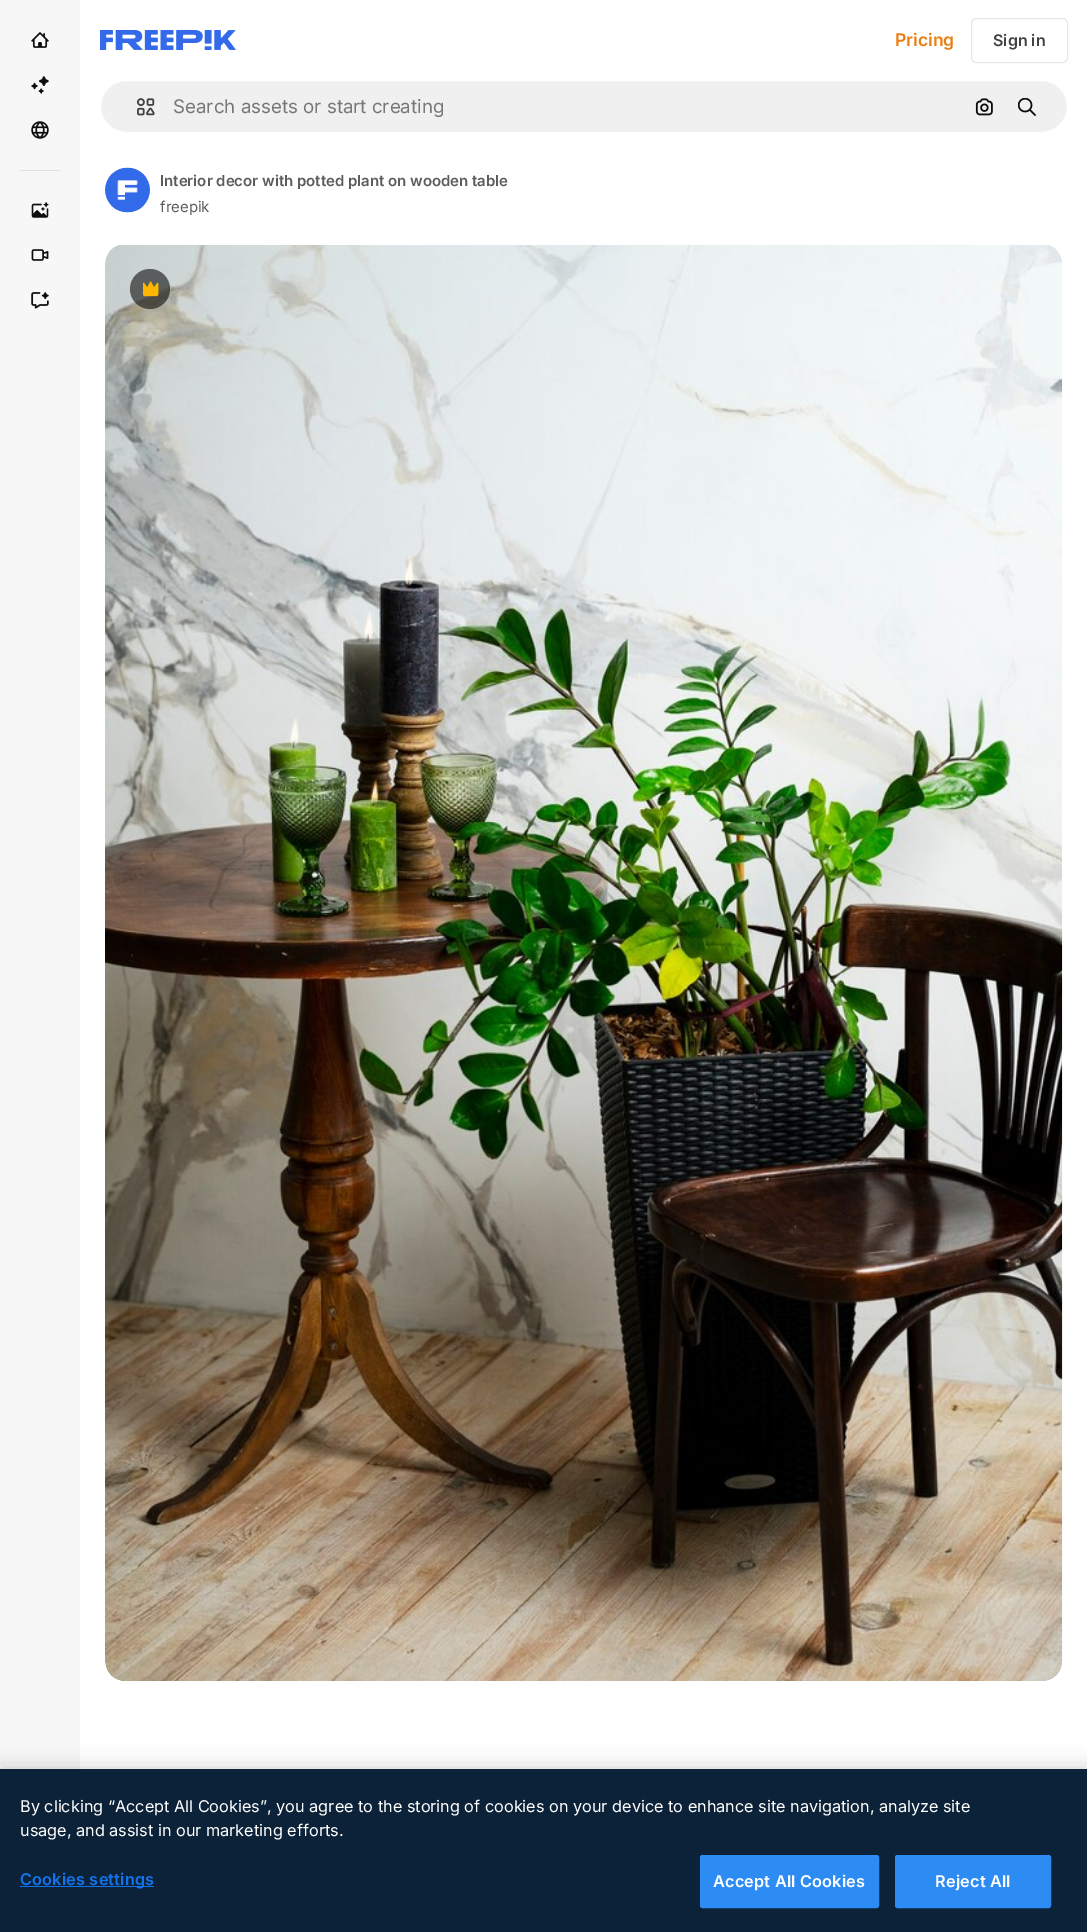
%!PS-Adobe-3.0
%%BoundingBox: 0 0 1087 1932
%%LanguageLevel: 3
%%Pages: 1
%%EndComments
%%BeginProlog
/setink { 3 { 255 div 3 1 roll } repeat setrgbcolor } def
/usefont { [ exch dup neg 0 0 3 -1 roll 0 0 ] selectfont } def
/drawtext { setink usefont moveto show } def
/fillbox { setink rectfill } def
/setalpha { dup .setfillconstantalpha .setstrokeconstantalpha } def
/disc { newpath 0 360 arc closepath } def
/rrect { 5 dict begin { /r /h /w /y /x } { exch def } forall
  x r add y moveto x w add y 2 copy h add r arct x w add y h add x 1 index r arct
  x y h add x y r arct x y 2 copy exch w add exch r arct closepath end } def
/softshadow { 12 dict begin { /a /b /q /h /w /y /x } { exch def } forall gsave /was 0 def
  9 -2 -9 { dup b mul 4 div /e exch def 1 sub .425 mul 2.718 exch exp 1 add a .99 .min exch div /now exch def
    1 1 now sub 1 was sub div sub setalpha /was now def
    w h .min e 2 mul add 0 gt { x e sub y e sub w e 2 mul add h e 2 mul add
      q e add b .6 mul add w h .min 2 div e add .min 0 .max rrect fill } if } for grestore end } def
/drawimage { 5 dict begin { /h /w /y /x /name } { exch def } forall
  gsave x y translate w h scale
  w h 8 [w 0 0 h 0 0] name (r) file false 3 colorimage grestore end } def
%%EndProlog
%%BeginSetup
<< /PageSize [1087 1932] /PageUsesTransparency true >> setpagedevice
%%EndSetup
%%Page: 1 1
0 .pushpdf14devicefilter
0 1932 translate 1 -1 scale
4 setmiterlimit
0 0 1087 1932 255 255 255 fillbox
0 0 80 1769 247 247 247 fillbox
(assets/img1.rgb) 31 32 18 16 drawimage
(assets/img2.rgb) 31 76 18 18 drawimage
(assets/img3.rgb) 31 121 18 18 drawimage
20 170 40 1 224 224 224 fillbox
(assets/img4.rgb) 31 202 18 16 drawimage
(assets/img5.rgb) 31 249 18 12 drawimage
(assets/img6.rgb) 31 292 18 17 drawimage
(assets/img7.rgb) 100 30 136 20 drawimage
(Pricing) 895 46 /Inter-SemiBold 17.5 234 126 17 drawtext
231 231 231 setink
971.5 18.5 96 44 4.5 rrect stroke
(Sign in) 993 46 /Inter-SemiBold 16 66 66 66 drawtext
240 240 240 setink
100.5 80.5 967 52 26 rrect gsave fill grestore
255 255 255 setink
stroke
(assets/img8.rgb) 136 98 19 18 drawimage
(Search assets or start creating) 173 113 /Inter-Regular 18.75 119 119 119 drawtext
(assets/img9.rgb) 975 98 18 18 drawimage
(assets/img10.rgb) 1018 98 18 18 drawimage
(assets/img11.rgb) 105 167 45 46 drawimage
(Interior decor with potted plant on wooden table) 160 186 /Inter-SemiBold 15 92 92 92 drawtext
(freepik) 160 212 /Inter-Regular 15 92 92 92 drawtext
(assets/img12.rgb) 105 245 958 1436 drawimage
0.6 setalpha
13 13 13 setink
150 289 20 disc fill
1 setalpha
(assets/img13.rgb) 143 281 16 16 drawimage
0 0 0 setink
0 1769 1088 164 0 11 0.2 softshadow
0 1769 1087 163 11 34 57 fillbox
(By clicking “Accept All Cookies”, you agree to the storing of cookies on your device to enhance site navigation, analyze site) 20 1812 /Inter-Regular 16.25 255 255 255 drawtext
(usage, and assist in our marketing efforts.) 20 1836 /Inter-Regular 16.25 255 255 255 drawtext
20 1886 134 1 18 115 235 fillbox
/Inter-SemiBold 16.25 usefont
20 1885 moveto 0.2 0 (Cookies settings) ashow
44 140 244 setink
700.5 1855.5 178 52 2 rrect gsave fill grestore
stroke
255 255 255 setink
713 1887 moveto 0.2 0 (Accept All Cookies) ashow
44 140 244 setink
895.5 1855.5 155 52 2 rrect gsave fill grestore
stroke
255 255 255 setink
935 1887 moveto 0.2 0 (Reject All) ashow
.poppdf14devicefilter showpage
%%EOF
